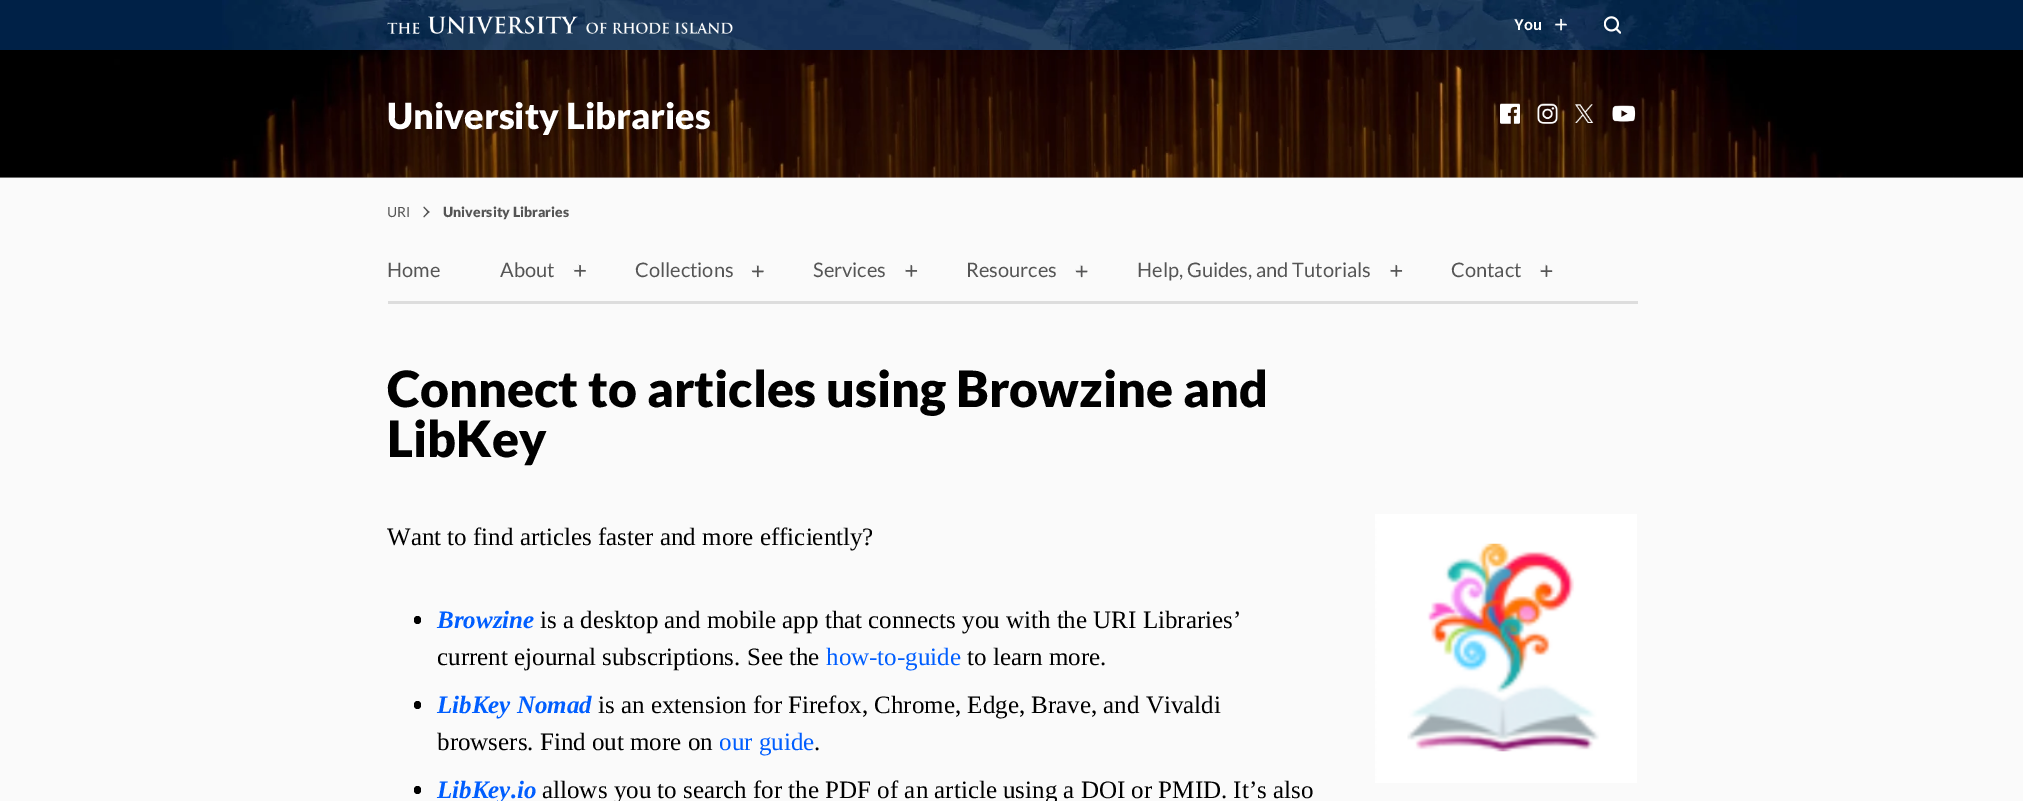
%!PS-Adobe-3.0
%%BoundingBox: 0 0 2023 801
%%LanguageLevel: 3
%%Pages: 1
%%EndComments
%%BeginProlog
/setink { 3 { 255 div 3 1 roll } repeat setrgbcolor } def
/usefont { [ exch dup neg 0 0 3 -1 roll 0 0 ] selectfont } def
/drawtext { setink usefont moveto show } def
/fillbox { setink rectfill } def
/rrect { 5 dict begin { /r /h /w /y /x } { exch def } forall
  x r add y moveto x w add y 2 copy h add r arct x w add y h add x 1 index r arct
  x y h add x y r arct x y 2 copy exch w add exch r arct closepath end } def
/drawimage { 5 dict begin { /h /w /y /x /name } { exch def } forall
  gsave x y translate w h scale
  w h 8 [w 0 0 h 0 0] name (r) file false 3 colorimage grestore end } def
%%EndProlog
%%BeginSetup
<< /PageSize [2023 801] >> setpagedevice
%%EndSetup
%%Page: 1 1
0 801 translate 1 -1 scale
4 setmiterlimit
0 0 2023 801 250 250 250 fillbox
0 0 2023 50 0 33 71 fillbox
(assets/img1.rgb) 222 0 1575 50 drawimage
(assets/img2.rgb) 387 16 346 18 drawimage
(You) 1514 30 /Hind-SemiBold 16 255 255 255 drawtext
(assets/img3.rgb) 1555 18 12 13 drawimage
(assets/img4.rgb) 1604 16 17 18 drawimage
0 177 2023 1 217 217 217 fillbox
(assets/img5.rgb) 0 50 2023 128 drawimage
(University Libraries) 387 129 /Lato-Black 36 255 255 255 drawtext
(assets/img6.rgb) 1500 103 20 21 drawimage
(assets/img7.rgb) 1537 103 21 21 drawimage
(assets/img8.rgb) 1575 104 19 19 drawimage
(assets/img9.rgb) 1612 105 24 17 drawimage
(URI) 387 217 /Lato-Regular 14 85 85 85 drawtext
424 206.5 moveto 429.5 212 lineto 428.5 213 lineto 423.5 207.5 lineto closepath fill
428.5 211 moveto 429.5 212 lineto 424 217.5 lineto 423.5 216.5 lineto closepath fill
(University Libraries) 443 217 /Lato-Black 14 85 85 85 drawtext
388 301 1250 3 221 221 221 fillbox
(Home) 387 277 /Lato-Regular 20 85 85 85 drawtext
(About) 500 277 /Lato-Regular 20 85 85 85 drawtext
(assets/img10.rgb) 573 264 13 13 drawimage
(Collections) 635 277 /Lato-Regular 20 85 85 85 drawtext
(assets/img11.rgb) 751 265 13 13 drawimage
(Services) 813 277 /Lato-Regular 20 85 85 85 drawtext
(assets/img12.rgb) 905 264 13 13 drawimage
(Resources) 966 277 /Lato-Regular 20 85 85 85 drawtext
(assets/img13.rgb) 1075 264 13 14 drawimage
(Help, Guides, and Tutorials) 1137 277 /Lato-Regular 20 85 85 85 drawtext
(assets/img14.rgb) 1390 264 13 13 drawimage
(Contact) 1451 277 /Lato-Regular 20 85 85 85 drawtext
(assets/img15.rgb) 1540 264 13 13 drawimage
(Connect to articles using Browzine and) 387 407 /Lato-Black 50 0 0 0 drawtext
(LibKey) 387 457 /Lato-Black 50 0 0 0 drawtext
(Want to find articles faster and more efficiently?) 387 545 /LiberationSerif-Regular 25 0 0 0 drawtext
414 616 7 8 3.5 rrect fill
(Browzine) 437 628 /LiberationSerif-BoldItalic 25 0 94 255 drawtext
(is a desktop and mobile app that connects you with the URI Libraries’) 540 628 /LiberationSerif-Regular 25 0 0 0 drawtext
(current ejournal subscriptions. See the) 437 665 /LiberationSerif-Regular 25 0 0 0 drawtext
(how-to-guide) 826 665 /LiberationSerif-Regular 25 0 94 255 drawtext
(to learn more.) 967 665 /LiberationSerif-Regular 25 0 0 0 drawtext
414 701 7 8 3.5 rrect fill
(LibKey Nomad) 437 713 /LiberationSerif-BoldItalic 25 0 94 255 drawtext
(is an extension for Firefox, Chrome, Edge, Brave, and Vivaldi) 598 713 /LiberationSerif-Regular 25 0 0 0 drawtext
(browsers. Find out more on) 437 750 /LiberationSerif-Regular 25 0 0 0 drawtext
(our guide) 719 750 /LiberationSerif-Regular 25 0 94 255 drawtext
(.) 814 750 /LiberationSerif-Regular 25 0 0 0 drawtext
414 786 7 8 3.5 rrect fill
(LibKey.io) 437 798 /LiberationSerif-BoldItalic 25 0 94 255 drawtext
(allows you to search for the PDF of an article using a DOI or PMID. It’s also) 542 798 /LiberationSerif-Regular 25 0 0 0 drawtext
(assets/img16.rgb) 1375 514 262 269 drawimage
showpage
%%EOF
